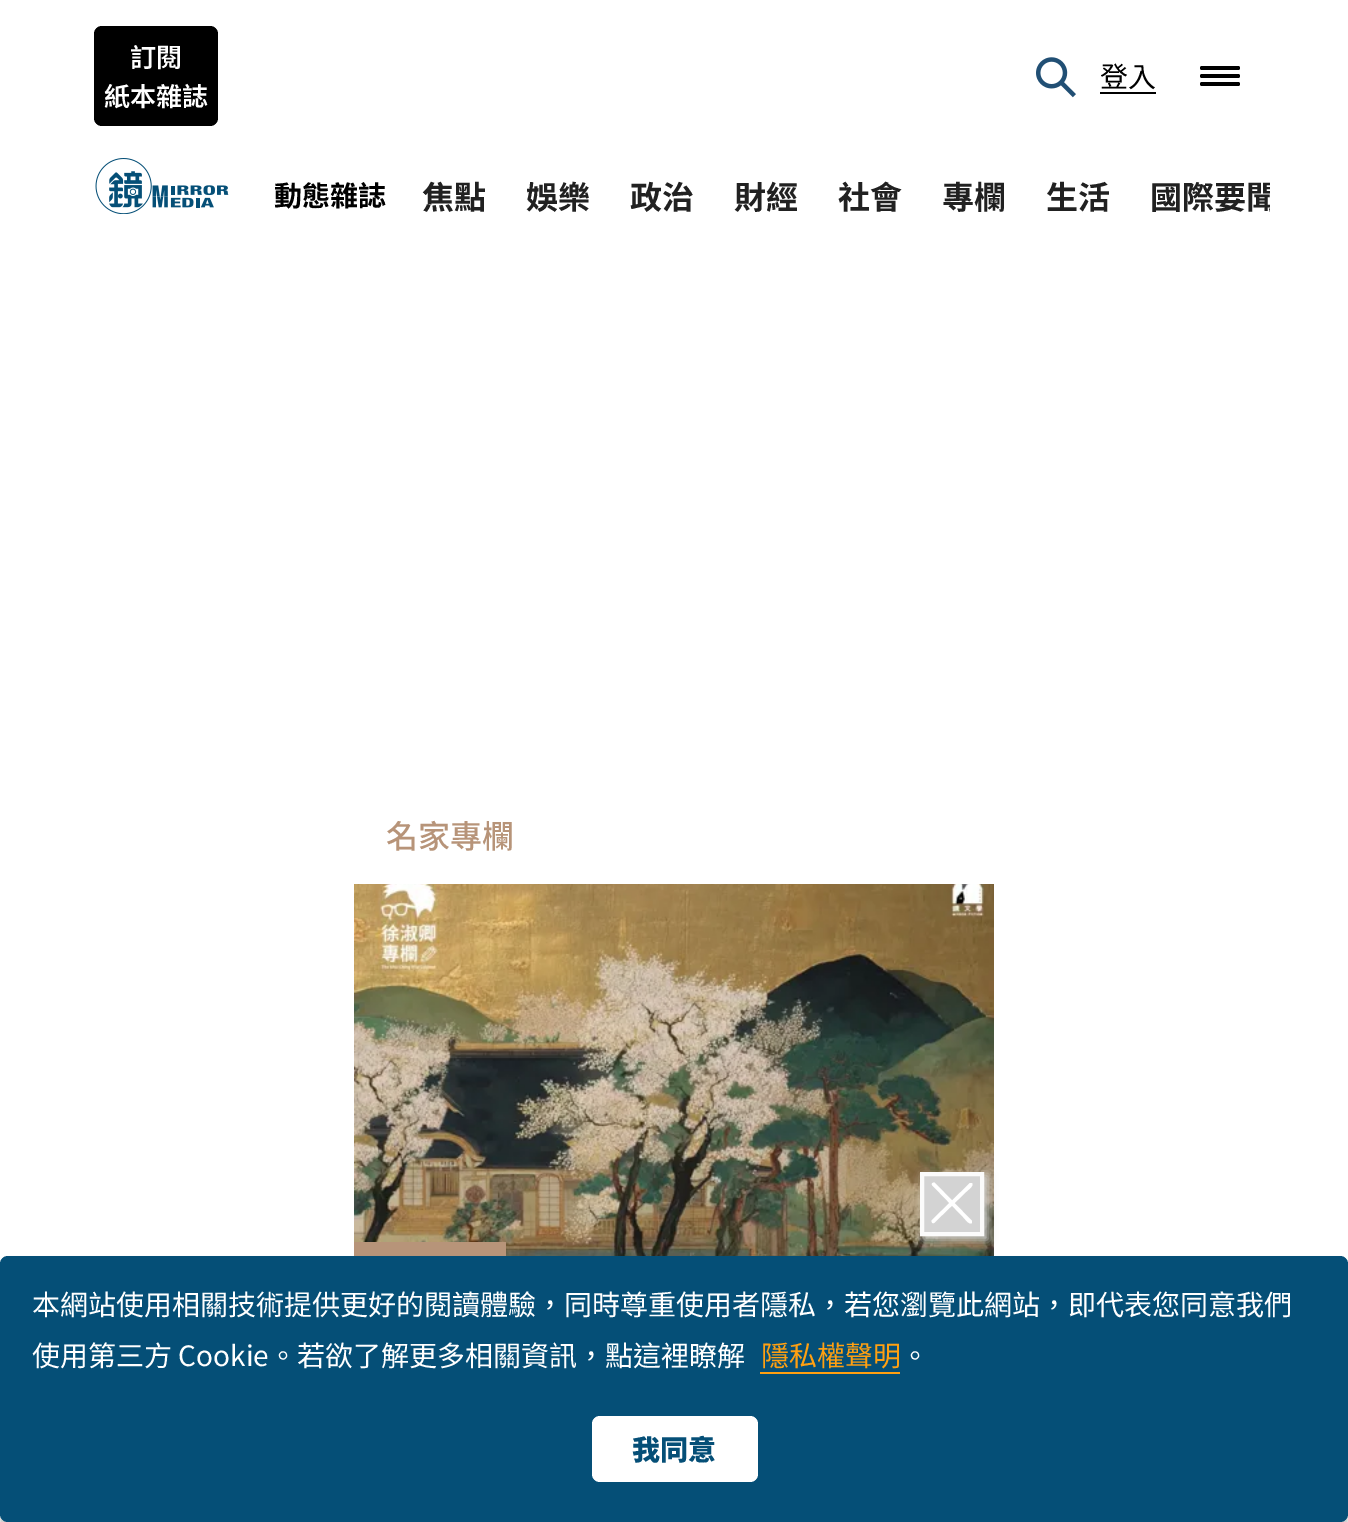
%!PS-Adobe-3.0
%%BoundingBox: 0 0 1348 1522
%%LanguageLevel: 3
%%Pages: 1
%%EndComments
%%BeginProlog
/setink { 3 { 255 div 3 1 roll } repeat setrgbcolor } def
/usefont { [ exch dup neg 0 0 3 -1 roll 0 0 ] selectfont } def
/drawtext { setink usefont moveto show } def
/fillbox { setink rectfill } def
/setalpha { dup .setfillconstantalpha .setstrokeconstantalpha } def
/rrect { 5 dict begin { /r /h /w /y /x } { exch def } forall
  x r add y moveto x w add y 2 copy h add r arct x w add y h add x 1 index r arct
  x y h add x y r arct x y 2 copy exch w add exch r arct closepath end } def
/softshadow { 12 dict begin { /a /b /q /h /w /y /x } { exch def } forall gsave /was 0 def
  9 -2 -9 { dup b mul 4 div /e exch def 1 sub .425 mul 2.718 exch exp 1 add a .99 .min exch div /now exch def
    1 1 now sub 1 was sub div sub setalpha /was now def
    w h .min e 2 mul add 0 gt { x e sub y e sub w e 2 mul add h e 2 mul add
      q e add b .6 mul add w h .min 2 div e add .min 0 .max rrect fill } if } for grestore end } def
/drawimage { 5 dict begin { /h /w /y /x /name } { exch def } forall
  gsave x y translate w h scale
  w h 8 [w 0 0 h 0 0] name (r) file false 3 colorimage grestore end } def
%%EndProlog
%%BeginSetup
<< /PageSize [1348 1522] /PageUsesTransparency true >> setpagedevice
%%EndSetup
%%Page: 1 1
0 .pushpdf14devicefilter
0 1522 translate 1 -1 scale
4 setmiterlimit
0 0 1348 1522 255 255 255 fillbox
0 0 0 setink
94 26 124 100 8 rrect fill
(訂閱) 130 67 /NotoSansTC-SemiBold 26 255 255 255 drawtext
(紙本雜誌) 104 106 /NotoSansTC-SemiBold 26 255 255 255 drawtext
(assets/img1.rgb) 1036 57 40 41 drawimage
(登入) 1100 87 /NotoSansTC-Regular 28 0 0 0 drawtext
1100 92 56 2 0 0 0 fillbox
1200 66 40 4 2 rrect fill
1200 74 40 4 2 rrect fill
1200 82 40 4 2 rrect fill
(assets/img2.rgb) 95 158 134 56 drawimage
(動態雜誌) 274 206 /NotoSansTC-Bold 28 0 0 0 drawtext
(焦點) 422 209 /NotoSansTC-Bold 32 33 33 33 drawtext
(娛樂) 526 209 /NotoSansTC-Bold 32 33 33 33 drawtext
(政治) 630 209 /NotoSansTC-Bold 32 33 33 33 drawtext
(財經) 734 209 /NotoSansTC-Bold 32 33 33 33 drawtext
(社會) 838 209 /NotoSansTC-Bold 32 33 33 33 drawtext
(專欄) 942 209 /NotoSansTC-Bold 32 33 33 33 drawtext
(生活) 1046 209 /NotoSansTC-Bold 32 33 33 33 drawtext
gsave
250 150 1020 86 rectclip
(國際要聞) 1150 209 /NotoSansTC-Bold 32 33 33 33 drawtext
grestore
(名家專欄) 386 848 /NotoSansTC-Medium 32 183 148 121 drawtext
(assets/img3.rgb) 354 884 640 372 drawimage
354 1242 152 14 183 148 121 fillbox
211 211 211 setink
924 1176 64 64 0 5 1 softshadow
922 1174 moveto 982 1174 lineto 982 1234 lineto 922 1234 lineto closepath gsave fill grestore
251 251 251 setink
4 setlinewidth
stroke
255 255 255 setink
935 1183 moveto 972 1221 lineto 972 1223 lineto 969 1225 966 1220 963 1217 curveto 932 1185 lineto 931 1183 934 1182 935 1183 curveto closepath fill
932 1220 moveto 970 1183 lineto 972 1183 lineto 974 1186 969 1189 966 1192 curveto 934 1223 lineto 932 1224 931 1221 932 1220 curveto closepath fill
0 0 0 setink
0 1264 1348 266 8 4 0.25 softshadow
5 79 119 setink
0 1256 1348 266 8 rrect fill
(本網站使用相關技術提供更好的閱讀體驗，同時尊重使用者隱私，若您瀏覽此網站，即代表您同意我們) 32 1315 /NotoSansTC-Regular 28 255 255 255 drawtext
(使用第三方 Cookie。若欲了解更多相關資訊，點這裡瞭解) 32 1366 /NotoSansTC-Regular 28 255 255 255 drawtext
(隱私權聲明) 761 1366 /NotoSansTC-Regular 28 255 160 17 drawtext
760 1372 140 2 255 160 17 fillbox
(。) 901 1366 /NotoSansTC-Regular 28 255 255 255 drawtext
592 1416 166 66 8 rrect fill
(我同意) 632 1460 /NotoSansTC-Black 28 5 79 119 drawtext
.poppdf14devicefilter showpage
%%EOF
